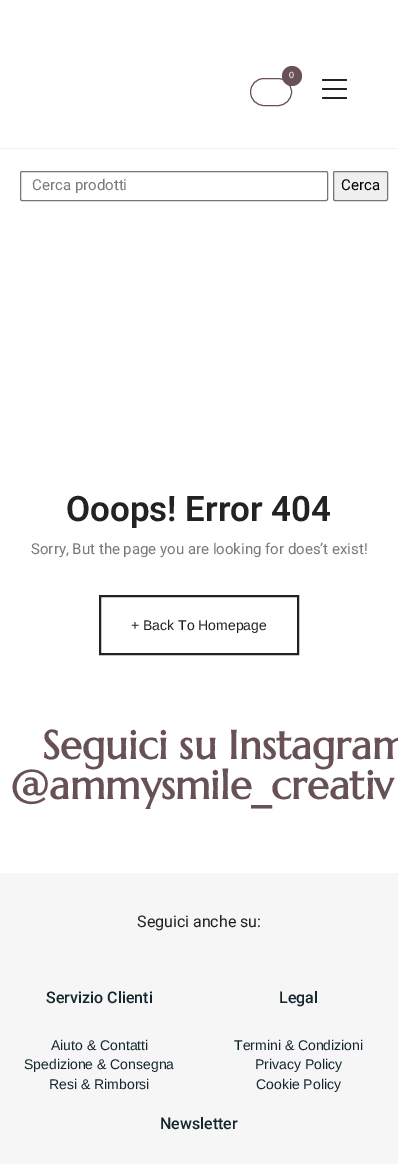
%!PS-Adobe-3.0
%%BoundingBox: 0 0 398 1164
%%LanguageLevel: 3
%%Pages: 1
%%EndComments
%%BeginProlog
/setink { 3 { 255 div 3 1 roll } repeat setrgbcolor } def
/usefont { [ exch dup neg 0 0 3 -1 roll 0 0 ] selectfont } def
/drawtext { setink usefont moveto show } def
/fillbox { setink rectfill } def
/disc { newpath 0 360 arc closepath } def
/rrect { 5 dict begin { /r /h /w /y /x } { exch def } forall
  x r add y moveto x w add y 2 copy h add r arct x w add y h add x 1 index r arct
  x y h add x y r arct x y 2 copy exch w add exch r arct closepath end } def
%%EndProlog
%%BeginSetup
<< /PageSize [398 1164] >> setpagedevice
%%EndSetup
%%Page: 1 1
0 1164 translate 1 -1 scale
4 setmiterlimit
0 0 398 1164 255 255 255 fillbox
103 81 85 setink
250.5 78.5 41 27 13.5 rrect stroke
292 76 10 disc fill
(0) 289 78 /LiberationSans-Regular 9 255 255 255 drawtext
34 34 34 setink
322 88 25 2 1 rrect fill
322 79 25 2 1 rrect fill
322 97 25 2 1 rrect fill
0 148 398 1 243 243 243 fillbox
118 118 118 setink
20.5 171.5 307 29 1.5 rrect stroke
(Cerca prodotti) 32 190 /Roboto-Regular 15 122 122 122 drawtext
239 239 239 setink
333.5 171.5 54 29 1.5 rrect gsave fill grestore
118 118 118 setink
stroke
(Cerca) 341 190 /Roboto-Regular 15 0 0 0 drawtext
(Ooops! Error 404) 66 521 /Roboto-SemiBold 35 34 34 34 drawtext
(Sorry, But the page you are looking for does’t exist!) 31 554 /Roboto-Regular 15 122 122 122 drawtext
34 34 34 setink
2 setlinewidth
100 596 198 58 rectstroke
(+ Back To Homepage) 131 630 /LiberationSans-Regular 14 34 34 34 drawtext
(Seguici su Instagram) 42 759 /Marcellus-Bold 40 103 81 85 drawtext
(@ammysmile_creativ) 10 799 /Marcellus-Bold 40 103 81 85 drawtext
0 873 398 291 246 246 246 fillbox
(Seguici anche su:) 137 927 /Roboto-Regular 16 34 34 34 drawtext
(Servizio Clienti) 46 1003 /Roboto-Medium 16 20 39 46 drawtext
(Aiuto & Contatti) 51 1050 /LiberationSans-Regular 14 20 39 46 drawtext
(Spedizione & Consegna) 24 1069 /LiberationSans-Regular 14 20 39 46 drawtext
(Resi & Rimborsi) 49 1089 /LiberationSans-Regular 14 20 39 46 drawtext
(Legal) 279 1003 /Roboto-Medium 16 20 39 46 drawtext
(Termini & Condizioni) 234 1050 /LiberationSans-Regular 14 20 39 46 drawtext
(Privacy Policy) 255 1069 /LiberationSans-Regular 14 20 39 46 drawtext
(Cookie Policy) 256 1089 /LiberationSans-Regular 14 20 39 46 drawtext
(Newsletter) 160 1129 /Roboto-Medium 16 20 39 46 drawtext
showpage
%%EOF
